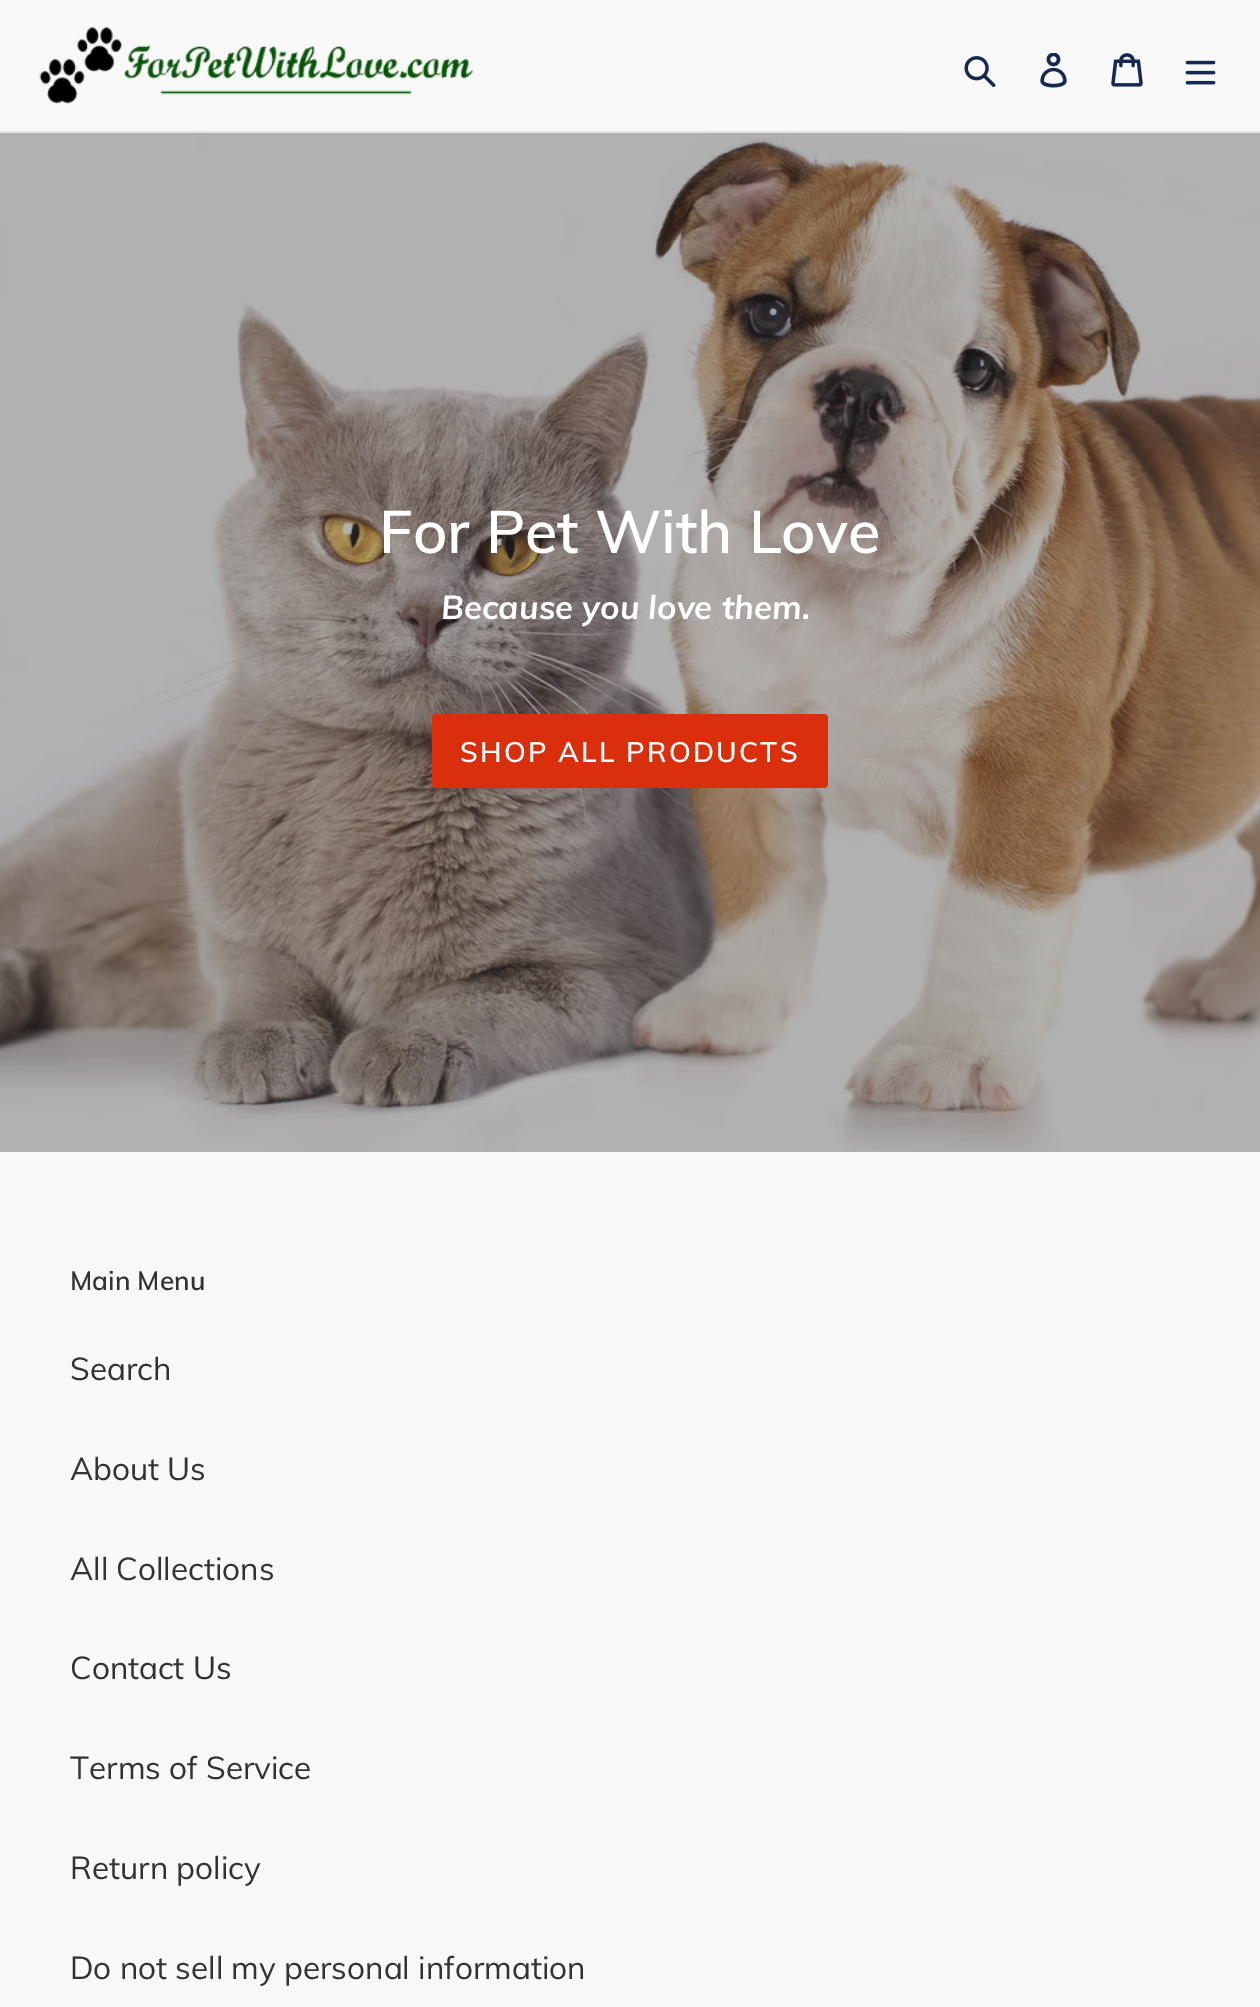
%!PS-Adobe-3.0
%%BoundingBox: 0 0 1260 2007
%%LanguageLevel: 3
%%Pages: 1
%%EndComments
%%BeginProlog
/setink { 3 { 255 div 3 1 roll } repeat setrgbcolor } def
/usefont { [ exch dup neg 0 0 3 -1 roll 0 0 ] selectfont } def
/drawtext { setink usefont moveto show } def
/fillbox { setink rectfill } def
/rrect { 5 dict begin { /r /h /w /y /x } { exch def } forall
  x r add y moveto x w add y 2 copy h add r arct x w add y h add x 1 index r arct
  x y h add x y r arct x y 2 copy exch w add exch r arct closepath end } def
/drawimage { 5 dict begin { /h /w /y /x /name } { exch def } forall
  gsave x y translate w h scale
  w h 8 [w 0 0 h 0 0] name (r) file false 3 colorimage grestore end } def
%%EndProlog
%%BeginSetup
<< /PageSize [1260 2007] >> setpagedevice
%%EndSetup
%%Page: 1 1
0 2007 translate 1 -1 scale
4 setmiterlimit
0 0 1260 2007 248 248 248 fillbox
0 1151 1260 1 173 173 173 fillbox
0 131 1260 2 228 228 228 fillbox
(assets/img1.rgb) 39 26 435 78 drawimage
(assets/img2.rgb) 964 56 32 31 drawimage
(assets/img3.rgb) 1040 53 27 35 drawimage
(assets/img4.rgb) 1111 53 32 34 drawimage
(assets/img5.rgb) 1185 60 31 25 drawimage
(assets/img6.rgb) 0 133 1260 1019 drawimage
(For Pet With Love) 379 553 /Muli-SemiBold 59.5 255 255 255 drawtext
(Because you love them.) 441 619 /Muli-BoldItalic 33 255 255 255 drawtext
218 47 12 setink
432 714 396 74 4 rrect fill
/Muli-SemiBold 28 usefont
255 255 255 setink
460 762 moveto 2.25 0 (SHOP ALL PRODUCTS) ashow
(Main Menu) 70 1290 /Muli-SemiBold 26.25 51 50 50 drawtext
(Search) 70 1380 /Muli-Regular 31.5 51 50 50 drawtext
(About Us) 70 1480 /Muli-Regular 31.5 51 50 50 drawtext
(All Collections) 70 1580 /Muli-Regular 31.5 51 50 50 drawtext
(Contact Us) 70 1679 /Muli-Regular 31.5 51 50 50 drawtext
(Terms of Service) 70 1779 /Muli-Regular 31.5 51 50 50 drawtext
(Return policy) 70 1879 /Muli-Regular 31.5 51 50 50 drawtext
(Do not sell my personal information) 70 1979 /Muli-Regular 31.5 51 50 50 drawtext
showpage
%%EOF
